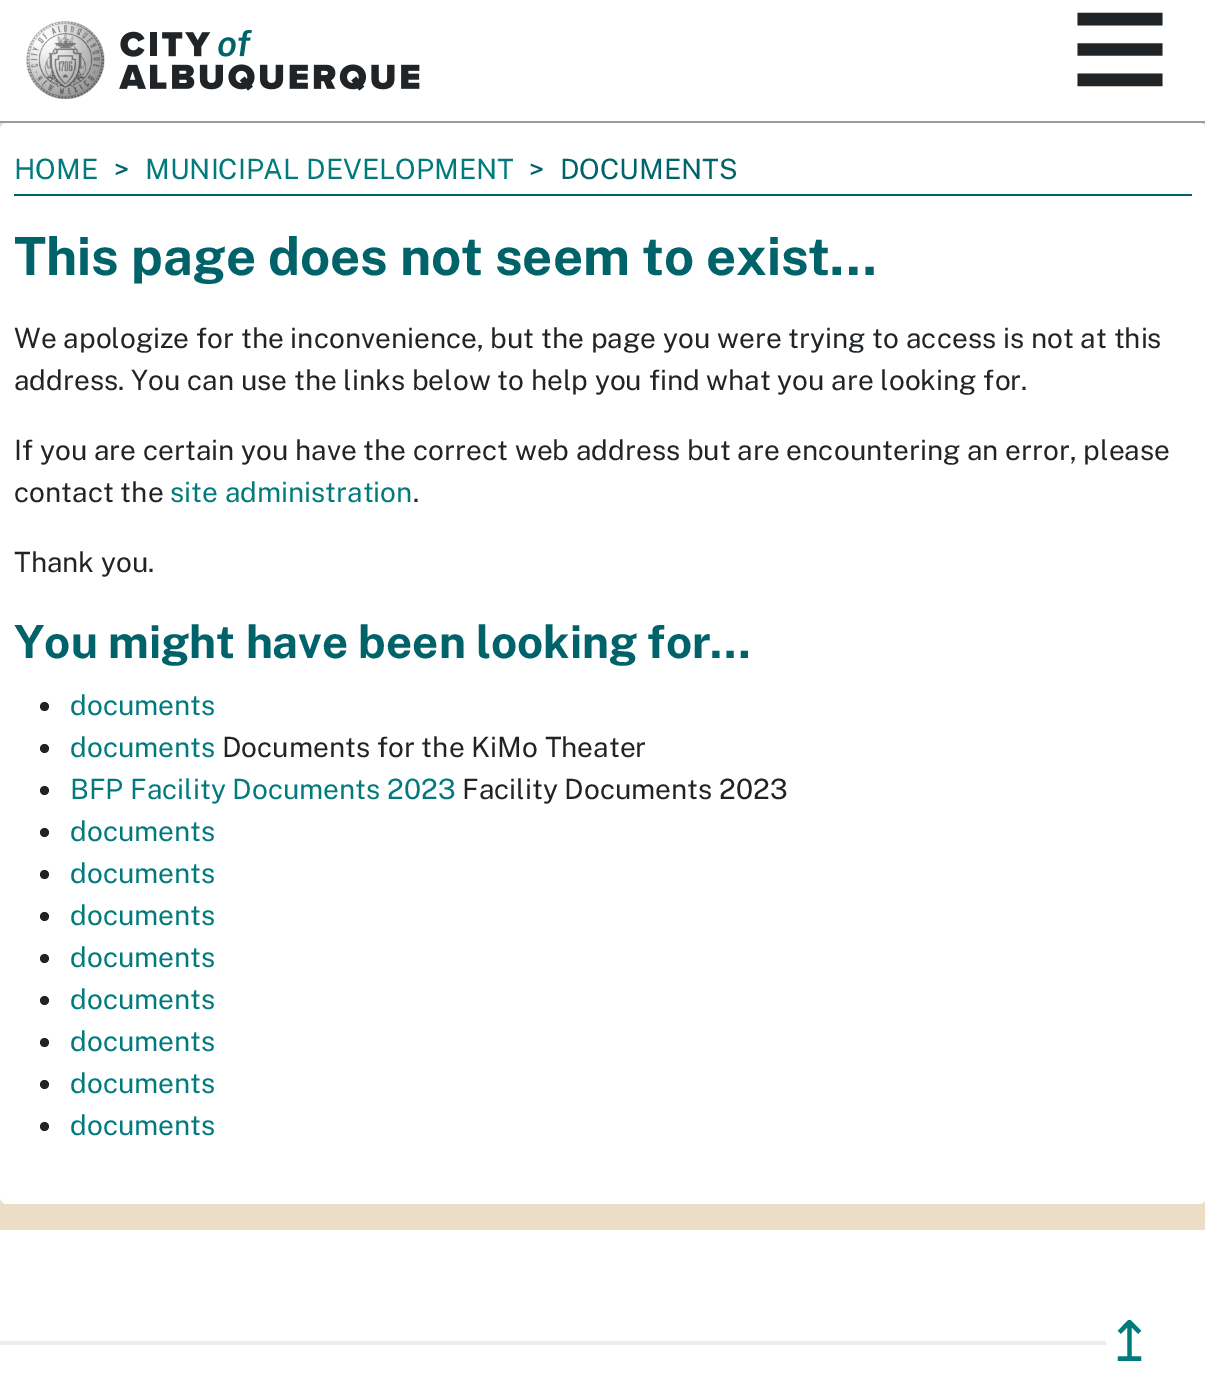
%!PS-Adobe-3.0
%%BoundingBox: 0 0 1205 1384
%%LanguageLevel: 3
%%Pages: 1
%%EndComments
%%BeginProlog
/setink { 3 { 255 div 3 1 roll } repeat setrgbcolor } def
/usefont { [ exch dup neg 0 0 3 -1 roll 0 0 ] selectfont } def
/drawtext { setink usefont moveto show } def
/fillbox { setink rectfill } def
/disc { newpath 0 360 arc closepath } def
/rrect { 5 dict begin { /r /h /w /y /x } { exch def } forall
  x r add y moveto x w add y 2 copy h add r arct x w add y h add x 1 index r arct
  x y h add x y r arct x y 2 copy exch w add exch r arct closepath end } def
/drawimage { 5 dict begin { /h /w /y /x /name } { exch def } forall
  gsave x y translate w h scale
  w h 8 [w 0 0 h 0 0] name (r) file false 3 colorimage grestore end } def
%%EndProlog
%%BeginSetup
<< /PageSize [1205 1384] >> setpagedevice
%%EndSetup
%%Page: 1 1
0 1384 translate 1 -1 scale
4 setmiterlimit
0 0 1205 1384 255 255 255 fillbox
(≡) 1069 107 /LiberationSans-Regular 175 33 36 39 drawtext
0 121 1205 2 155 155 155 fillbox
(assets/img1.rgb) 26 21 79 79 drawimage
(assets/img2.rgb) 119 30 301 61 drawimage
0 123 1205 1107 235 221 198 fillbox
255 255 255 setink
0 123 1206 1081 7 rrect fill
14 194 1178 2 1 99 106 fillbox
(HOME) 14 179 /PublicSans-Regular 28 1 122 125 drawtext
(>) 114 179 /PublicSans-Regular 28 1 99 106 drawtext
(MUNICIPAL DEVELOPMENT) 145 179 /PublicSans-Regular 28 1 122 125 drawtext
(>) 529 179 /PublicSans-Regular 28 1 99 106 drawtext
(DOCUMENTS) 560 179 /PublicSans-Regular 28 1 99 106 drawtext
(This page does not seem to exist…) 14 275 /PublicSans-Bold 52.5 1 99 106 drawtext
(We apologize for the inconvenience, but the page you were trying to access is not at this) 14 348 /PublicSans-Regular 28 33 36 39 drawtext
(address. You can use the links below to help you find what you are looking for.) 14 390 /PublicSans-Regular 28 33 36 39 drawtext
(If you are certain you have the correct web address but are encountering an error, please) 14 460 /PublicSans-Regular 28 33 36 39 drawtext
(contact the) 14 502 /PublicSans-Regular 28 33 36 39 drawtext
(site administration) 170 502 /PublicSans-Regular 28 1 122 125 drawtext
(.) 413 502 /PublicSans-Regular 28 33 36 39 drawtext
(Thank you.) 14 572 /PublicSans-Regular 28 33 36 39 drawtext
(You might have been looking for…) 14 658 /PublicSans-Bold 45.5 1 99 106 drawtext
33 36 39 setink
44.5 706.5 4.5 disc fill
(documents) 70 715 /PublicSans-Regular 28 1 122 125 drawtext
33 36 39 setink
44.5 748.5 4.5 disc fill
(documents) 70 757 /PublicSans-Regular 28 1 122 125 drawtext
(Documents for the KiMo Theater) 222 757 /PublicSans-Regular 28 33 36 39 drawtext
44.5 790.5 4.5 disc fill
(BFP Facility Documents 2023) 70 799 /PublicSans-Regular 28 1 122 125 drawtext
(Facility Documents 2023) 462 799 /PublicSans-Regular 28 33 36 39 drawtext
44.5 832.5 4.5 disc fill
(documents) 70 841 /PublicSans-Regular 28 1 122 125 drawtext
33 36 39 setink
44.5 874.5 4.5 disc fill
(documents) 70 883 /PublicSans-Regular 28 1 122 125 drawtext
33 36 39 setink
44.5 916.5 4.5 disc fill
(documents) 70 925 /PublicSans-Regular 28 1 122 125 drawtext
33 36 39 setink
44.5 958.5 4.5 disc fill
(documents) 70 967 /PublicSans-Regular 28 1 122 125 drawtext
33 36 39 setink
44.5 1000.5 4.5 disc fill
(documents) 70 1009 /PublicSans-Regular 28 1 122 125 drawtext
33 36 39 setink
44.5 1042.5 4.5 disc fill
(documents) 70 1051 /PublicSans-Regular 28 1 122 125 drawtext
33 36 39 setink
44.5 1084.5 4.5 disc fill
(documents) 70 1093 /PublicSans-Regular 28 1 122 125 drawtext
33 36 39 setink
44.5 1126.5 4.5 disc fill
(documents) 70 1135 /PublicSans-Regular 28 1 122 125 drawtext
0 1341 1106 4 236 237 236 fillbox
(↥) 1106 1361 /DejaVuSans-Regular 56 1 122 125 drawtext
showpage
%%EOF
